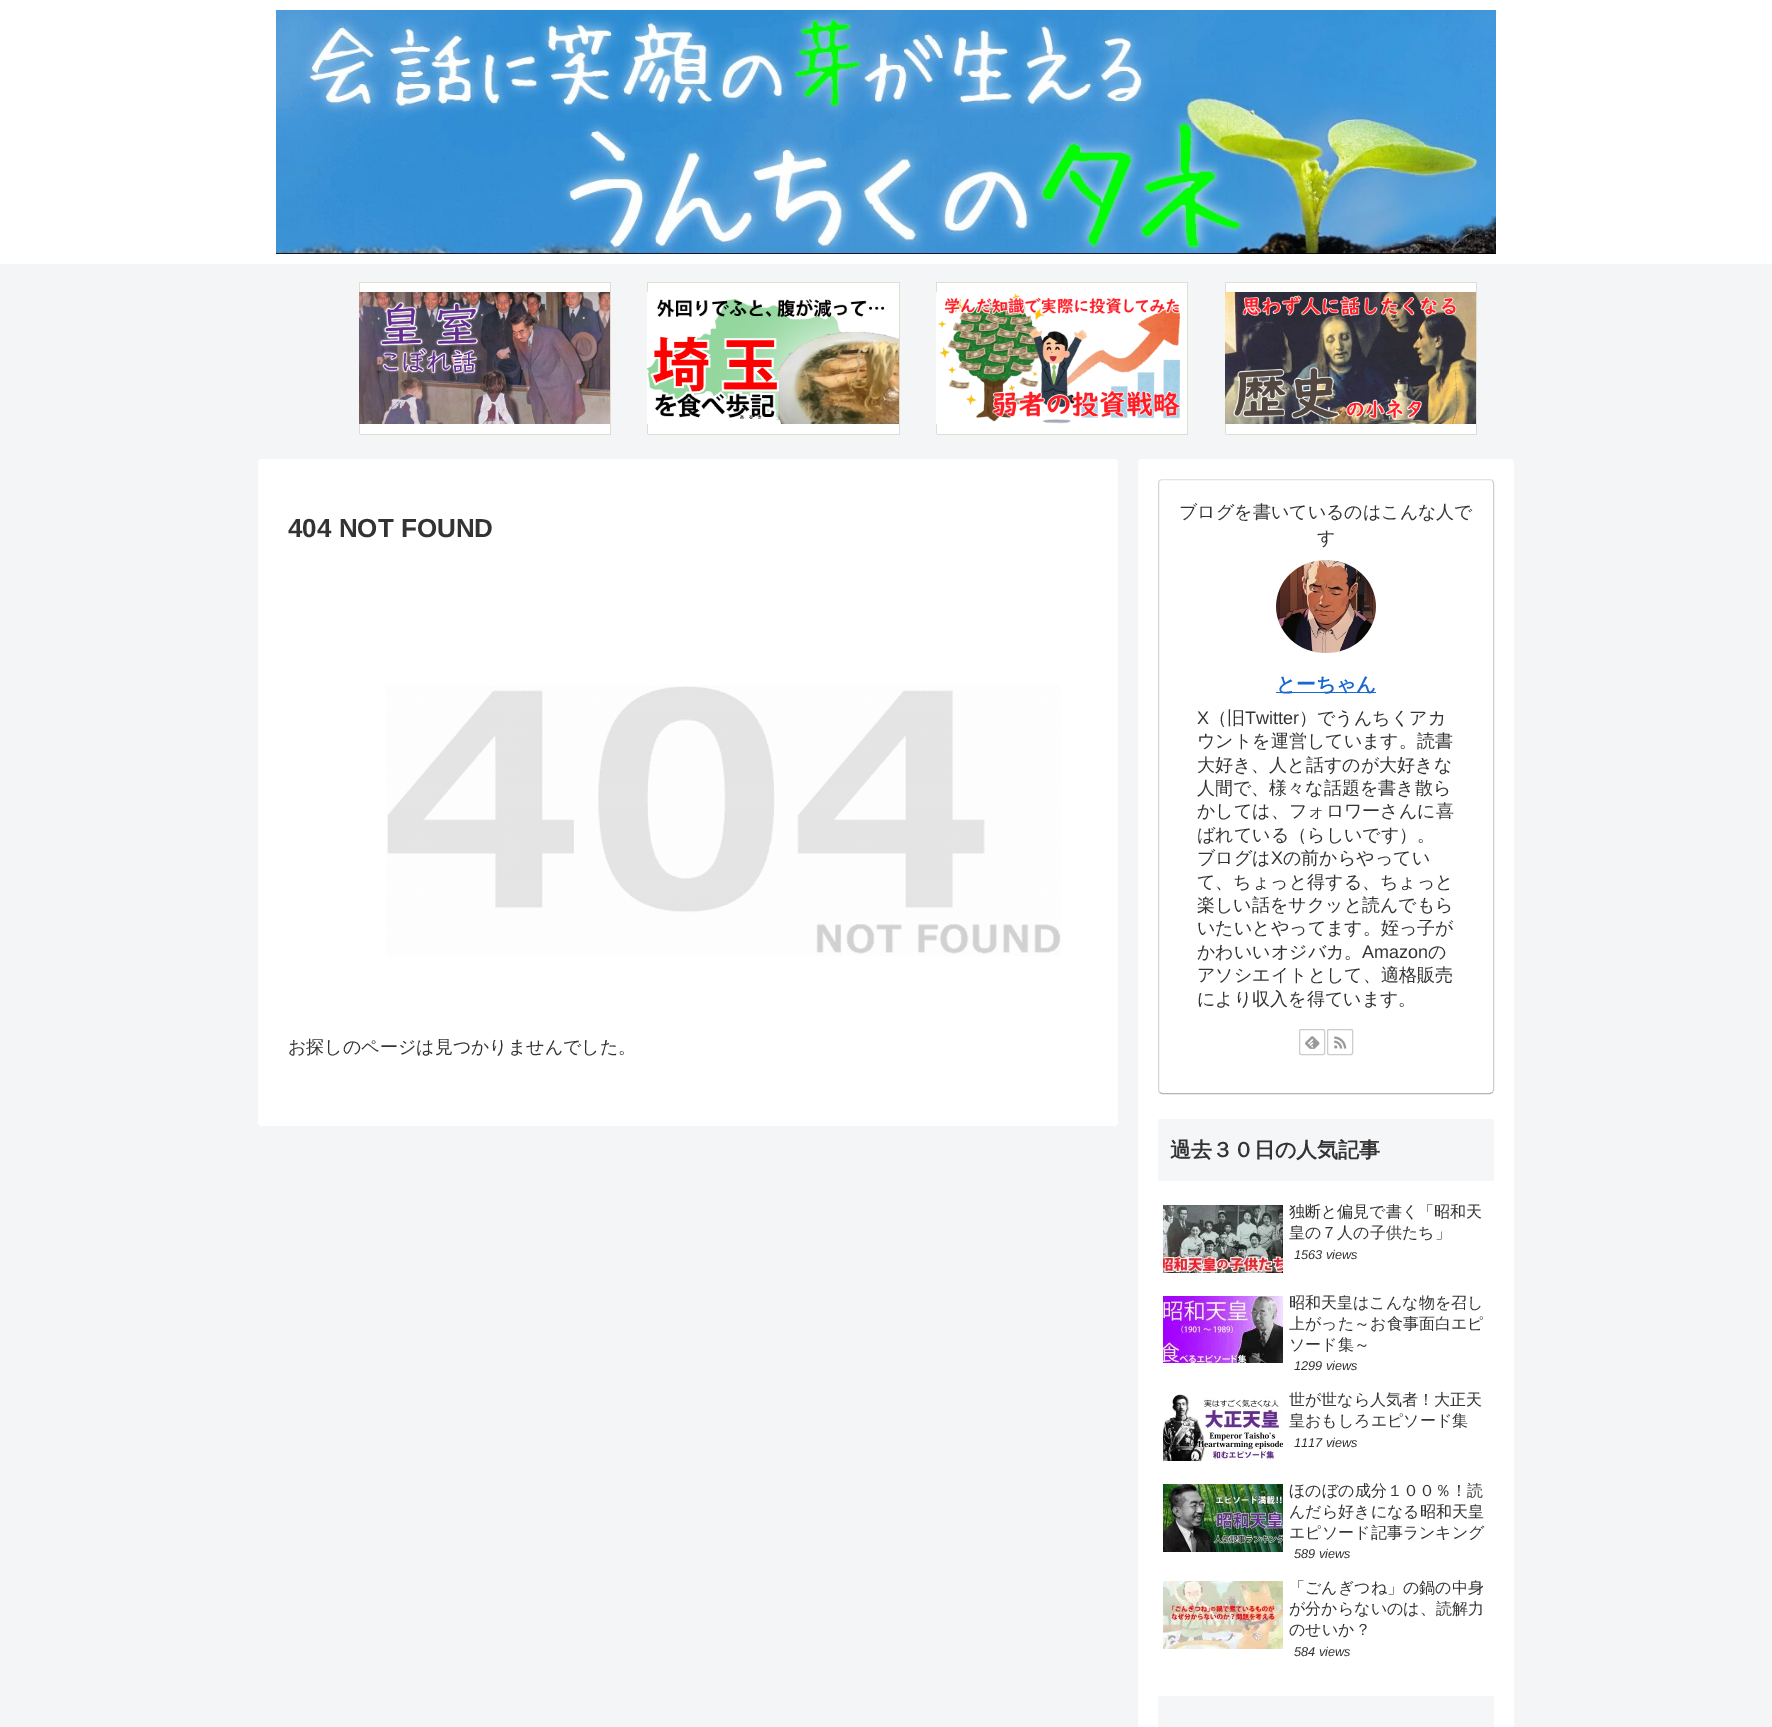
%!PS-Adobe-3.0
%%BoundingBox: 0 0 1772 1727
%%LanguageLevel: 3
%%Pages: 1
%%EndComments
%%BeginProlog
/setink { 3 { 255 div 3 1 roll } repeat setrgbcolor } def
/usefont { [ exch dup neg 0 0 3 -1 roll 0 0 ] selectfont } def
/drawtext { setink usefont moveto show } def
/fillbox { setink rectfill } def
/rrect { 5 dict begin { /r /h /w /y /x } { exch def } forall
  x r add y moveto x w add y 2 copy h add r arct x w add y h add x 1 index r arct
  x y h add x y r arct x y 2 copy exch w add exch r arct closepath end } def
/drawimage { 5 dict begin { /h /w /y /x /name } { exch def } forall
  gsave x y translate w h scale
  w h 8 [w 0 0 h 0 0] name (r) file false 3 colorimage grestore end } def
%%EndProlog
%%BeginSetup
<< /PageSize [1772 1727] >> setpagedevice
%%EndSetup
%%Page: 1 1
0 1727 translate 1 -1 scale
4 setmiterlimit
0 0 1772 1727 244 245 247 fillbox
0 0 1772 264 255 255 255 fillbox
(assets/img1.rgb) 276 10 1220 244 drawimage
610 282 1 1 224 221 209 fillbox
360 434 moveto 360 435 lineto 611 435 lineto 611 283 lineto 610 283 lineto 610 434 lineto closepath fill
360 283 250 151 255 255 255 fillbox
gsave
359 282 251 152 rectclip
224 221 209 setink
260 183 moveto 709 183 lineto 709 533 lineto 260 533 lineto closepath 360 283 moveto 611 283 lineto 611 435 lineto 360 435 lineto closepath eofill
grestore
(assets/img2.rgb) 359 292 251 132 drawimage
899 282 1 1 224 221 209 fillbox
648 434 moveto 648 435 lineto 900 435 lineto 900 283 lineto 899 283 lineto 899 434 lineto closepath fill
648 283 251 151 255 255 255 fillbox
gsave
647 282 252 152 rectclip
224 221 209 setink
548 183 moveto 998 183 lineto 998 533 lineto 548 533 lineto closepath 648 283 moveto 900 283 lineto 900 435 lineto 648 435 lineto closepath eofill
grestore
(assets/img3.rgb) 647 292 252 132 drawimage
1187 282 1 1 224 221 209 fillbox
937 434 moveto 937 435 lineto 1188 435 lineto 1188 283 lineto 1187 283 lineto 1187 434 lineto closepath fill
937 283 250 151 255 255 255 fillbox
gsave
936 282 251 152 rectclip
224 221 209 setink
837 183 moveto 1286 183 lineto 1286 533 lineto 837 533 lineto closepath 937 283 moveto 1188 283 lineto 1188 435 lineto 937 435 lineto closepath eofill
grestore
(assets/img4.rgb) 936 292 245 132 drawimage
1476 282 1 1 224 221 209 fillbox
1226 434 moveto 1226 435 lineto 1477 435 lineto 1477 283 lineto 1476 283 lineto 1476 434 lineto closepath fill
1226 283 250 151 255 255 255 fillbox
gsave
1225 282 251 152 rectclip
224 221 209 setink
1126 183 moveto 1575 183 lineto 1575 533 lineto 1126 533 lineto closepath 1226 283 moveto 1477 283 lineto 1477 435 lineto 1226 435 lineto closepath eofill
grestore
(assets/img5.rgb) 1225 292 251 132 drawimage
258 459 860 667 4 rrect fill
(404 NOT FOUND) 288 537 /LiberationSans-Bold 26 51 51 51 drawtext
(assets/img6.rgb) 386 685 675 271 drawimage
(お探しのページは見つかりませんでした。) 288 1053 /WenQuanYiZenHei-Medium 18 51 51 51 drawtext
255 255 255 setink
1138 459 376 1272 4 rrect fill
227 227 227 setink
1159.5 480.5 moveto 1162 479.5 lineto 1490 479.5 lineto 1492.5 480.5 lineto stroke
206 206 206 setink
1492.5 480.5 moveto 1493.5 483 lineto 1493.5 1090 lineto 1492.5 1092.5 lineto stroke
180 180 180 setink
1492.5 1092.5 moveto 1490 1093.5 lineto 1162 1093.5 lineto 1159.5 1092.5 lineto stroke
214 214 214 setink
1159.5 1092.5 moveto 1158.5 1090 lineto 1158.5 483 lineto 1159.5 480.5 lineto stroke
(ブログを書いているのはこんな人で) 1179 518 /WenQuanYiZenHei-Medium 18 51 51 51 drawtext
(す) 1317 544 /WenQuanYiZenHei-Medium 18 51 51 51 drawtext
(assets/img7.rgb) 1276 560 100 93 drawimage
1276 692 100 1 25 103 210 fillbox
(とーちゃん) 1276 691 /WenQuanYiZenHei-Bold 19.75 25 103 210 drawtext
(X) 1197 724 /LiberationSans-Regular 18 51 51 51 drawtext
(（旧) 1209 724 /WenQuanYiZenHei-Medium 18 51 51 51 drawtext
(Twitter) 1245 724 /LiberationSans-Regular 18 51 51 51 drawtext
(）でうんちくアカ) 1299 724 /WenQuanYiZenHei-Medium 18 51 51 51 drawtext
(ウントを運営しています。読書) 1197 747 /WenQuanYiZenHei-Medium 18 51 51 51 drawtext
(大好き、人と話すのが大好きな) 1197 771 /WenQuanYiZenHei-Medium 18 51 51 51 drawtext
(人間で、様々な話題を書き散ら) 1197 794 /WenQuanYiZenHei-Medium 18 51 51 51 drawtext
(かしては、フォロワーさんに喜) 1197 817 /WenQuanYiZenHei-Medium 18 51 51 51 drawtext
(ばれている（らしいです）。) 1197 841 /WenQuanYiZenHei-Medium 18 51 51 51 drawtext
(ブログは) 1197 864 /WenQuanYiZenHei-Medium 18 51 51 51 drawtext
(X) 1271 864 /LiberationSans-Regular 18 51 51 51 drawtext
(の前からやってい) 1283 864 /WenQuanYiZenHei-Medium 18 51 51 51 drawtext
(て、ちょっと得する、ちょっと) 1197 888 /WenQuanYiZenHei-Medium 18 51 51 51 drawtext
(楽しい話をサクッと読んでもら) 1197 911 /WenQuanYiZenHei-Medium 18 51 51 51 drawtext
(いたいとやってます。姪っ子が) 1197 934 /WenQuanYiZenHei-Medium 18 51 51 51 drawtext
(かわいいオジバカ。) 1197 958 /WenQuanYiZenHei-Medium 18 51 51 51 drawtext
(Amazon) 1362 958 /LiberationSans-Regular 18 51 51 51 drawtext
(の) 1428 958 /WenQuanYiZenHei-Medium 18 51 51 51 drawtext
(アソシエイトとして、適格販売) 1197 981 /WenQuanYiZenHei-Medium 18 51 51 51 drawtext
(により収入を得ています。) 1197 1005 /WenQuanYiZenHei-Medium 18 51 51 51 drawtext
204 204 204 setink
1299.5 1029.5 25 25 1.5 rrect stroke
(assets/img8.rgb) 1305 1036 15 13 drawimage
1327.5 1029.5 25 25 1.5 rrect stroke
(assets/img9.rgb) 1334 1036 13 13 drawimage
245 246 247 setink
1158 1119 336 62 2 rrect fill
(過去３０日の人気記事) 1170 1157 /WenQuanYiZenHei-Bold 21 51 51 51 drawtext
(assets/img10.rgb) 1163 1205 120 68 drawimage
(独断と偏見で書く「昭和天) 1289 1217 /WenQuanYiZenHei-Medium 16 51 51 51 drawtext
(皇の７人の子供たち」) 1289 1238 /WenQuanYiZenHei-Medium 16 51 51 51 drawtext
(1563 views) 1294 1259 /LiberationSans-Italic 12.75 51 51 51 drawtext
(assets/img11.rgb) 1163 1296 120 67 drawimage
(昭和天皇はこんな物を召し) 1289 1308 /WenQuanYiZenHei-Medium 16 51 51 51 drawtext
(上がった～お食事面白エピ) 1289 1329 /WenQuanYiZenHei-Medium 16 51 51 51 drawtext
(ソード集～) 1289 1350 /WenQuanYiZenHei-Medium 16 51 51 51 drawtext
(1299 views) 1294 1370 /LiberationSans-Italic 12.75 51 51 51 drawtext
(assets/img12.rgb) 1163 1394 120 67 drawimage
(世が世なら人気者！大正天) 1289 1405 /WenQuanYiZenHei-Medium 16 51 51 51 drawtext
(皇おもしろエピソード集) 1289 1426 /WenQuanYiZenHei-Medium 16 51 51 51 drawtext
(1117 views) 1294 1447 /LiberationSans-Italic 12.75 51 51 51 drawtext
(assets/img13.rgb) 1163 1484 120 68 drawimage
(ほのぼの成分１００％！読) 1289 1496 /WenQuanYiZenHei-Medium 16 51 51 51 drawtext
(んだら好きになる昭和天皇) 1289 1517 /WenQuanYiZenHei-Medium 16 51 51 51 drawtext
(エピソード記事ランキング) 1289 1538 /WenQuanYiZenHei-Medium 16 51 51 51 drawtext
(589 views) 1294 1558 /LiberationSans-Italic 12.75 51 51 51 drawtext
(assets/img14.rgb) 1163 1581 120 68 drawimage
(「ごんぎつね」の鍋の中身) 1289 1593 /WenQuanYiZenHei-Medium 16 51 51 51 drawtext
(が分からないのは、読解力) 1289 1614 /WenQuanYiZenHei-Medium 16 51 51 51 drawtext
(のせいか？) 1289 1635 /WenQuanYiZenHei-Medium 16 51 51 51 drawtext
(584 views) 1294 1656 /LiberationSans-Italic 12.75 51 51 51 drawtext
245 246 247 setink
1158 1696 336 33 2 rrect fill
showpage
%%EOF
